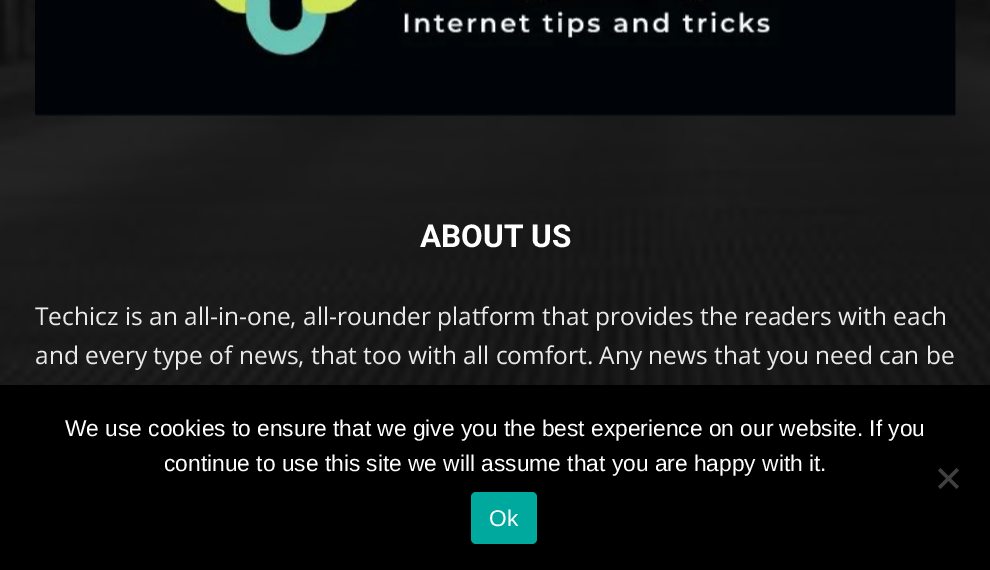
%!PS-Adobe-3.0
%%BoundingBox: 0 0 990 570
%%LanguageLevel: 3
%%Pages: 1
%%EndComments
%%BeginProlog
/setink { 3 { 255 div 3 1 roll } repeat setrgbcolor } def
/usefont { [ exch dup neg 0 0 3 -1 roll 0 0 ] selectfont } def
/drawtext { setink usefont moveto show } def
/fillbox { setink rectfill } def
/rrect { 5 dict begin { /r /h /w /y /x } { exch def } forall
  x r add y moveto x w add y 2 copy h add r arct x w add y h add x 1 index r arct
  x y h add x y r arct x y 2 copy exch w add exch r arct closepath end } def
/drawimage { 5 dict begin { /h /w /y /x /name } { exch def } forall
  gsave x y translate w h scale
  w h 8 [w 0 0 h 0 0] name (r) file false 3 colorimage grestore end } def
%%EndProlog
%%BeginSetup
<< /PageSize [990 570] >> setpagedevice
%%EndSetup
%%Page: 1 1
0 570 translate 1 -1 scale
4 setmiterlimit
0 0 990 570 17 17 17 fillbox
(assets/img1.rgb) 0 0 990 385 drawimage
(assets/img2.rgb) 35 0 921 116 drawimage
(ABOUT US) 420 247 /Roboto-Bold 31.5 255 255 255 drawtext
(Techicz is an all-in-one, all-rounder platform that provides the readers with each) 35 325 /OpenSans-Regular 24.5 234 234 234 drawtext
(and every type of news, that too with all comfort. Any news that you need can be) 35 364 /OpenSans-Regular 24.5 234 234 234 drawtext
0 385 990 185 0 0 0 fillbox
(We use cookies to ensure that we give you the best experience on our website. If you) 65 436 /LiberationSans-Regular 22.75 255 255 255 drawtext
(continue to use this site we will assume that you are happy with it.) 164 471 /LiberationSans-Regular 22.75 255 255 255 drawtext
64 64 64 setink
956.5 468 moveto 959 470.5 lineto 940.5 489 lineto 938 486.5 lineto closepath fill
938 470.5 moveto 940.5 468 lineto 959 486.5 lineto 956.5 489 lineto closepath fill
0 169 157 setink
471 492 66 52 5 rrect fill
(Ok) 489 526 /LiberationSans-Regular 22.75 255 255 255 drawtext
showpage
%%EOF
